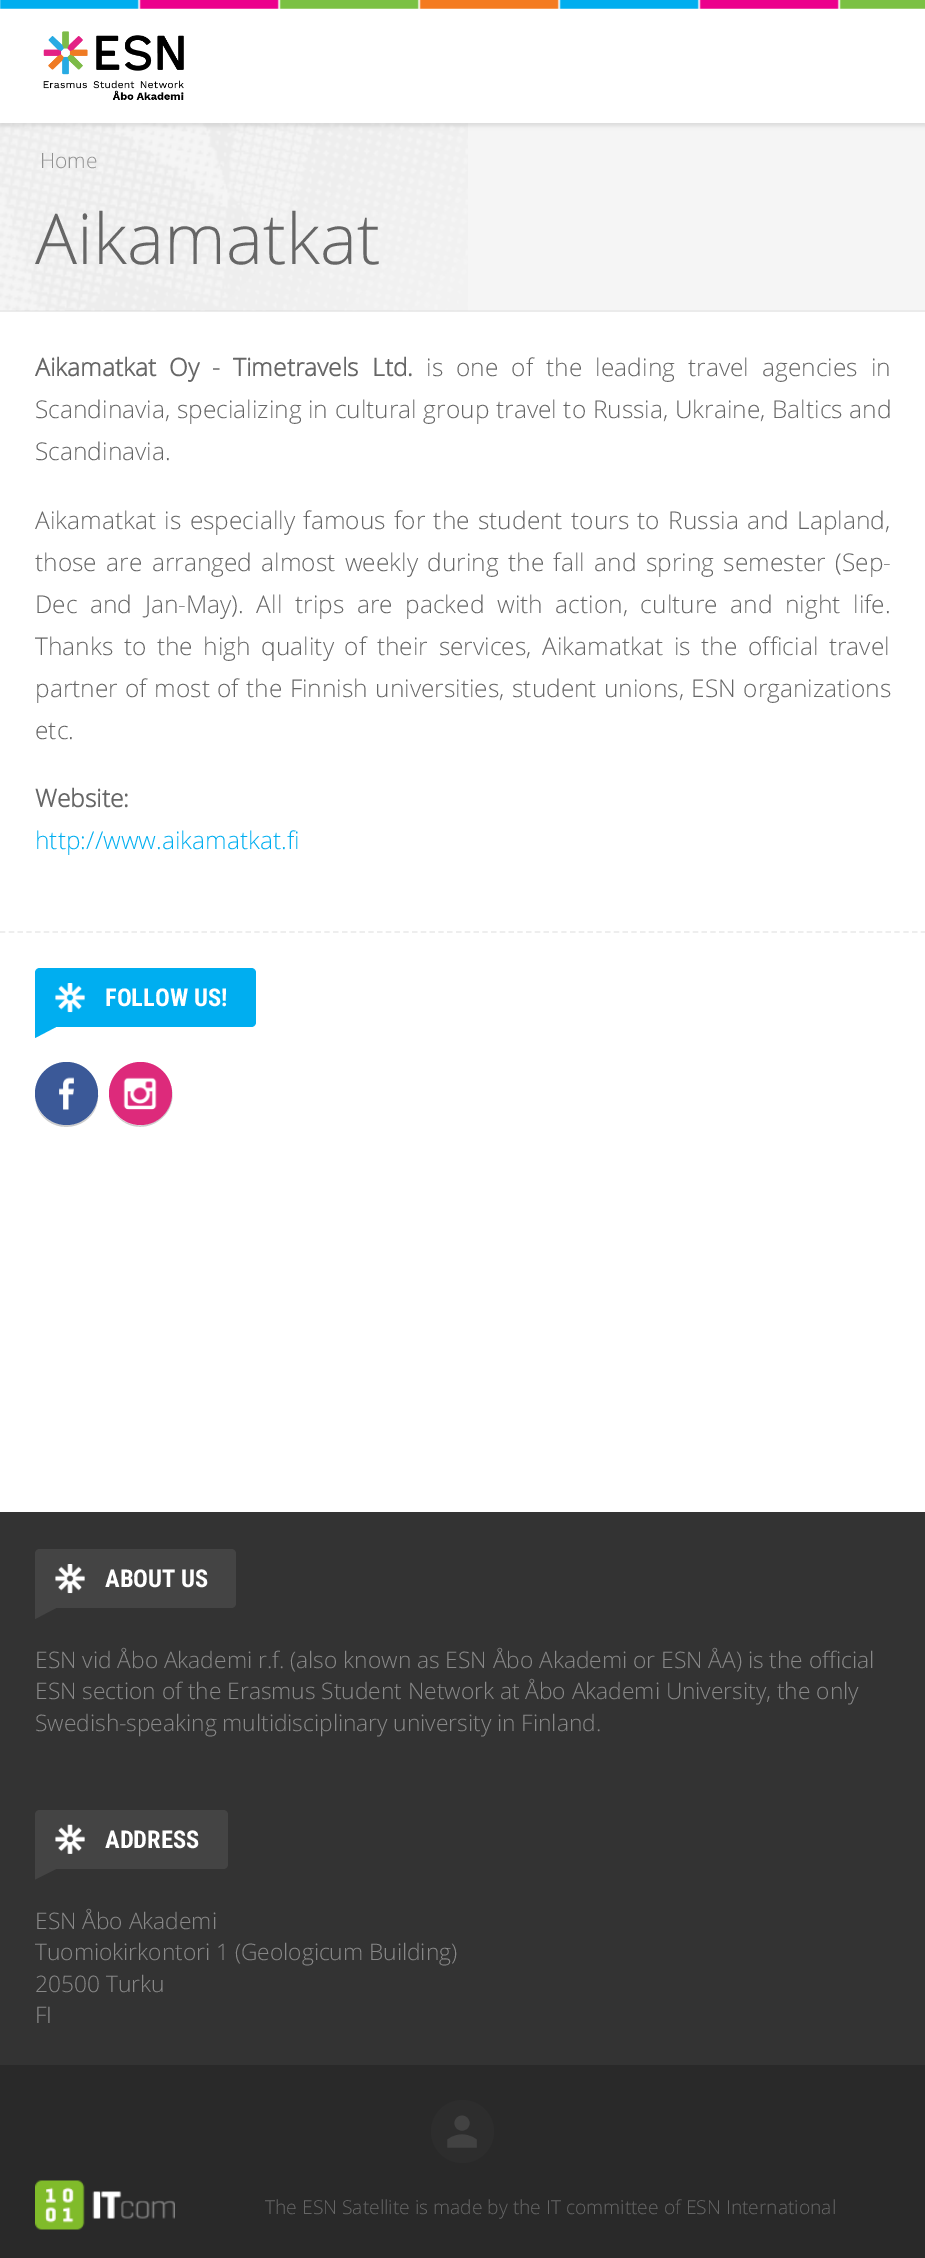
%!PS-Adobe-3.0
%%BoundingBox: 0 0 925 2258
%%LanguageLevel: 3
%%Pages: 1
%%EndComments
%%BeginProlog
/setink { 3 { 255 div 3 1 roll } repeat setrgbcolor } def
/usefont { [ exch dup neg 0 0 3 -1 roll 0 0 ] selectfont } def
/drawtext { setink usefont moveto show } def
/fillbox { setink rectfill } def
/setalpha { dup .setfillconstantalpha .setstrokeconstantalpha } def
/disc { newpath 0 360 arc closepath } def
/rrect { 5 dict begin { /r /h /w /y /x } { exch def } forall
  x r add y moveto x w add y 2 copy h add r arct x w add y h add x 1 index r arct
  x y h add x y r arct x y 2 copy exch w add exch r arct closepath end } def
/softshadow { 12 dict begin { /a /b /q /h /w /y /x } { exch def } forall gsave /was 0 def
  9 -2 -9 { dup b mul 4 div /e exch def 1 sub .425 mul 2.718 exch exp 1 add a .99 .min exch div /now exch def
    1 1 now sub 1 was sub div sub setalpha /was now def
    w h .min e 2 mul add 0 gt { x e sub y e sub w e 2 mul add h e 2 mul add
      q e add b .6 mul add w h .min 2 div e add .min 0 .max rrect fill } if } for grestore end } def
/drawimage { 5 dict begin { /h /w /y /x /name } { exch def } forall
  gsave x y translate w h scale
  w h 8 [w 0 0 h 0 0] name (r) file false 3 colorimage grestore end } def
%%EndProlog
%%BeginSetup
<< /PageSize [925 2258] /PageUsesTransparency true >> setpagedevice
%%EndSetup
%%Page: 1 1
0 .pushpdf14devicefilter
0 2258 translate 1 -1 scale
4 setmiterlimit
0 0 925 2258 255 255 255 fillbox
0 123 925 189 245 245 245 fillbox
(assets/img3.rgb) 0 123 468 188 drawimage
0 0 0 setink
0 4 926 122 0 2 0.1 softshadow
0 1 925 122 255 255 255 fillbox
(assets/img1.rgb) 0 0 925 9 drawimage
(assets/img2.rgb) 43 31 141 69 drawimage
0.04 setalpha
0 310 925 2 0 0 0 fillbox
1 setalpha
(Home) 40 168 /OpenSans-Light 21 144 144 144 drawtext
(Aikamatkat) 35 264 /OpenSans-Light 70 102 102 102 drawtext
/OpenSans-Bold 24.5 usefont
35 376 moveto 6.75 0 32 (Aikamatkat Oy - Timetravels Ltd.) widthshow
/OpenSans-Light 24.5 usefont
426 376 moveto 6.75 0 32 (is one of the leading travel agencies in) widthshow
35 418 moveto 0.25 0 32 (Scandinavia, specializing in cultural group travel to Russia, Ukraine, Baltics and) widthshow
(Scandinavia.) 35 460 /OpenSans-Light 24.5 102 102 102 drawtext
35 529 moveto 2 0 32 (Aikamatkat is especially famous for the student tours to Russia and Lapland,) widthshow
35 571 moveto 3 0 32 (those are arranged almost weekly during the fall and spring semester \(Sep-) widthshow
35 613 moveto 6.25 0 32 (Dec and Jan-May\). All trips are packed with action, culture and night life.) widthshow
35 655 moveto 4.25 0 32 (Thanks to the high quality of their services, Aikamatkat is the official travel) widthshow
35 697 moveto 1 0 32 (partner of most of the Finnish universities, student unions, ESN organizations) widthshow
(etc.) 35 739 /OpenSans-Light 24.5 102 102 102 drawtext
(Website:) 35 807 /OpenSans-Bold 24.5 102 102 102 drawtext
(http://www.aikamatkat.fi) 35 849 /OpenSans-Light 24.5 0 174 240 drawtext
238 238 238 setink
1.8 setlinewidth
[5.25 3.52] 0 setdash
0 932 moveto 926 932 lineto stroke
0 174 240 setink
40 968 moveto 251 968 lineto 254 968 256 970 256 973 curveto 256 1022 lineto 256 1025 254 1027 251 1027 curveto 35 1027 lineto 35 973 lineto 35 970 37 968 40 968 curveto closepath fill
(assets/img4.rgb) 55 983 30 30 drawimage
(FOLLOW US!) 105 1006 /RobotoCondensed-Bold 24.5 255 255 255 drawtext
0 174 240 setink
35 1027 moveto 56 1027 lineto 35 1038 lineto closepath fill
204 204 204 setink
35 1095 moveto 35 1101 37 1108 40 1113 curveto 58 1139 99 1126 98 1095 curveto 98 1112 84 1125 66 1125 curveto 49 1125 35 1112 35 1095 curveto closepath fill
59 89 152 setink
66.5 1093.5 31.5 disc fill
(assets/img5.rgb) 59 1077 15 33 drawimage
204 204 204 setink
110 1103 moveto 112 1110 116 1116 121 1120 curveto 145 1139 180 1115 171 1086 curveto 178 1114 145 1137 121 1119 curveto 116 1115 112 1110 110 1103 curveto closepath fill
221 42 123 setink
140.5 1093.5 31.5 disc fill
(assets/img6.rgb) 123 1077 34 33 drawimage
0 1512 925 553 51 51 51 fillbox
68 68 68 setink
40 1549 moveto 231 1549 lineto 234 1549 236 1551 236 1554 curveto 236 1603 lineto 236 1606 234 1608 231 1608 curveto 35 1608 lineto 35 1554 lineto 35 1551 37 1549 40 1549 curveto closepath fill
(assets/img7.rgb) 55 1564 30 30 drawimage
(ABOUT US) 105 1587 /RobotoCondensed-Bold 24.5 255 255 255 drawtext
68 68 68 setink
35 1608 moveto 56 1608 lineto 35 1619 lineto closepath fill
(ESN vid Åbo Akademi r.f. \(also known as ESN Åbo Akademi or ESN ÅA\) is the official) 35 1668 /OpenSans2-Light 22.75 136 136 136 drawtext
(ESN section of the Erasmus Student Network at Åbo Akademi University, the only) 35 1699 /OpenSans2-Light 22.75 136 136 136 drawtext
(Swedish-speaking multidisciplinary university in Finland.) 35 1731 /OpenSans2-Light 22.75 136 136 136 drawtext
68 68 68 setink
40 1810 moveto 223 1810 lineto 226 1810 228 1812 228 1815 curveto 228 1864 lineto 228 1867 226 1869 223 1869 curveto 35 1869 lineto 35 1815 lineto 35 1812 37 1810 40 1810 curveto closepath fill
(assets/img8.rgb) 55 1824 30 30 drawimage
(ADDRESS) 105 1848 /RobotoCondensed-Bold 24.5 255 255 255 drawtext
68 68 68 setink
35 1869 moveto 56 1869 lineto 35 1879.5 lineto closepath fill
(ESN Åbo Akademi) 35 1929 /OpenSans2-Light 22.75 136 136 136 drawtext
(Tuomiokirkontori 1 \(Geologicum Building\)) 35 1960 /OpenSans2-Light 22.75 136 136 136 drawtext
(20500 Turku) 35 1992 /OpenSans2-Light 22.75 136 136 136 drawtext
(FI) 35 2023 /OpenSans2-Light 22.75 136 136 136 drawtext
0 2065 925 193 41 41 41 fillbox
45 45 45 setink
462.5 2131.5 31.5 disc fill
(assets/img9.rgb) 447 2115 30 33 drawimage
(assets/img10.rgb) 35 2180 140 50 drawimage
(The ESN Satellite is made by the IT committee of ESN International) 265 2214 /OpenSans-Light 19.25 102 102 102 drawtext
.poppdf14devicefilter showpage
%%EOF
